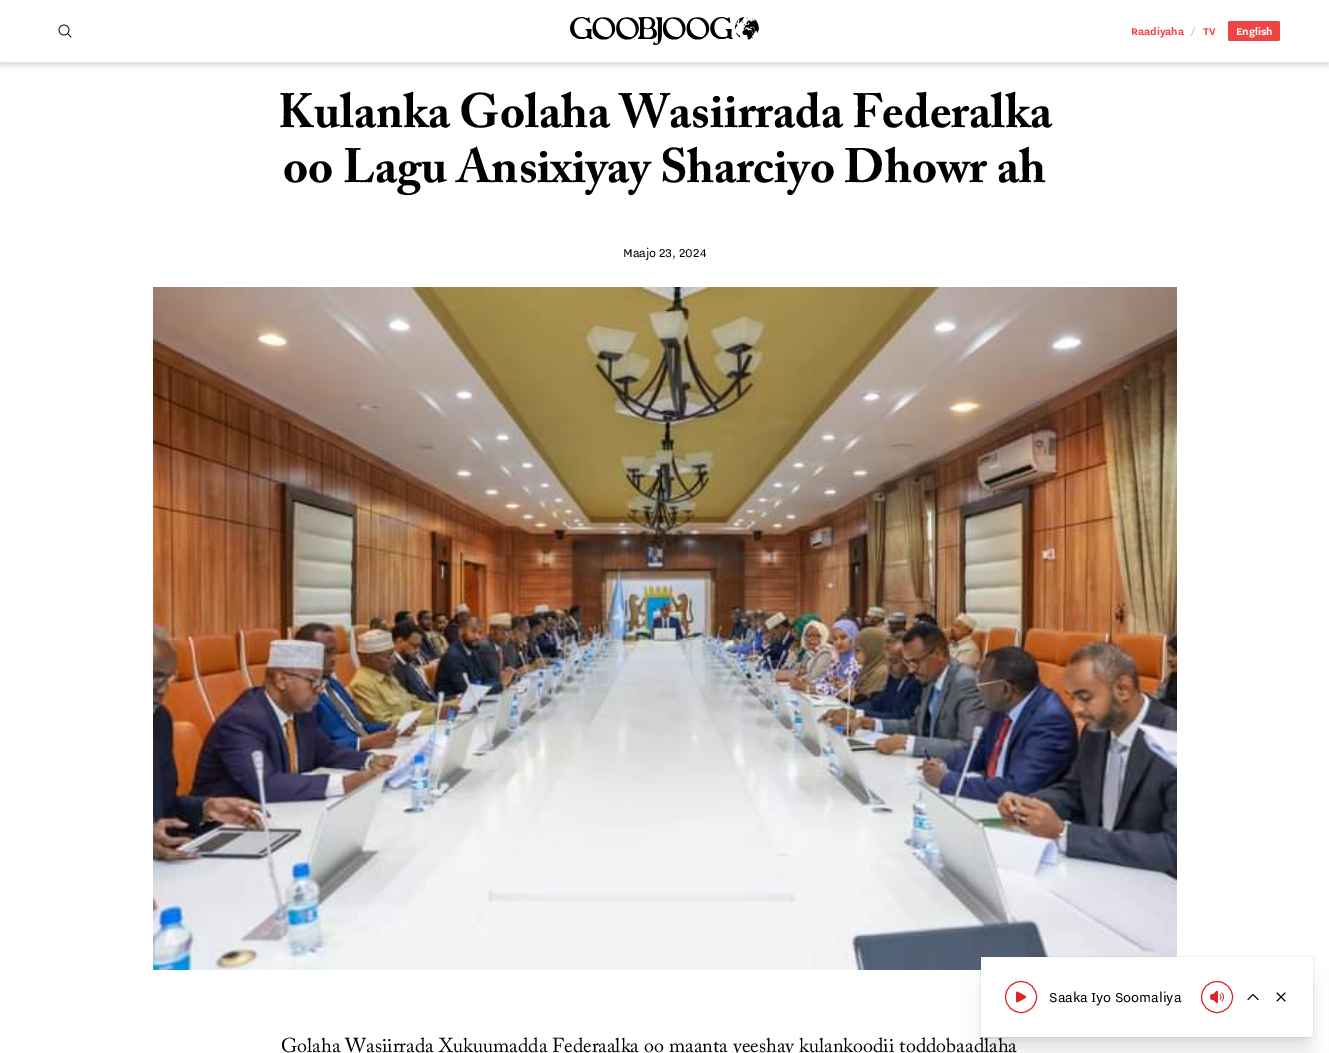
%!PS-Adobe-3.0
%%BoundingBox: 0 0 1329 1053
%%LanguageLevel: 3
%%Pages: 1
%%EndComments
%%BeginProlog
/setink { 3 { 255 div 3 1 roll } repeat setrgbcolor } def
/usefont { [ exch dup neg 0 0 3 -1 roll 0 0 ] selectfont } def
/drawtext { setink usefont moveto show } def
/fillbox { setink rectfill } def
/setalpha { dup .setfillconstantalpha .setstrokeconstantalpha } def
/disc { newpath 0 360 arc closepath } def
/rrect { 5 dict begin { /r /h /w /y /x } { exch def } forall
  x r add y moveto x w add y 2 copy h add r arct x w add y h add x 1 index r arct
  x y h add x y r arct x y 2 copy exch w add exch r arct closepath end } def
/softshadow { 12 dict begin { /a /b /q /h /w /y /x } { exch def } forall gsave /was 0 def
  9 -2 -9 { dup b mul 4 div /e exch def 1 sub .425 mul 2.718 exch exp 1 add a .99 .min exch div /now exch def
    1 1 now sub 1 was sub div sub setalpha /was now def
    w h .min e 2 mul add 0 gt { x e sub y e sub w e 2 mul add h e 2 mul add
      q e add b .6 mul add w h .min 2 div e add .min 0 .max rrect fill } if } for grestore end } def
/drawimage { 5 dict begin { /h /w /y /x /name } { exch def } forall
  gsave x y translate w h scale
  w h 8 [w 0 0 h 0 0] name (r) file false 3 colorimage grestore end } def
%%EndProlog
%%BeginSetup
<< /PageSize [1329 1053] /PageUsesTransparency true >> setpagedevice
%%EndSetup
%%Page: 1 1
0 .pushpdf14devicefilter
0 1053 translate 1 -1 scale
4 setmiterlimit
0 0 1329 1053 255 255 255 fillbox
0 0 0 setink
2 4 1325 59 0 2 0.1 softshadow
1 5 1327 61 0 3 0.1 softshadow
0 0 1329 62 255 255 255 fillbox
(assets/img1.rgb) 58 24 14 14 drawimage
(assets/img2.rgb) 570 17 189 28 drawimage
(Raadiyaha) 1131 35 /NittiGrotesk-Bold 12 239 68 68 drawtext
(/) 1191 35 /NittiGrotesk-Regular 12 179 179 179 drawtext
(TV) 1203 35 /NittiGrotesk-Bold 12 239 68 68 drawtext
1228 21 52 20 2 rrect fill
(English) 1236 35 /NittiGrotesk-Bold 12 255 255 255 drawtext
0 62 1329 1 230 230 230 fillbox
(Kulanka Golaha Wasiirrada Federalka) 278 127 /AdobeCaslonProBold-Bold 48 0 0 0 drawtext
(oo Lagu Ansixiyay Sharciyo Dhowr ah) 283 182 /AdobeCaslonProBold-Bold 48 0 0 0 drawtext
(Maajo 23, 2024) 623 257 /NittiGrotesk-Regular 14 0 0 0 drawtext
(assets/img3.rgb) 153 287 1024 683 drawimage
(Golaha Wasiirrada Xukuumadda Federaalka oo maanta yeeshay kulankoodii toddobaadlaha) 281 1052 /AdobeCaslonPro-Regular 20 0 0 0 drawtext
987 971 320 68 0 5 0.1 softshadow
986 982 322 70 0 12.5 0.1 softshadow
0.05 setalpha
17 24 39 setink
980.5 956.5 333 81 rectstroke
1 setalpha
981 957 332 80 255 255 255 fillbox
220 38 38 setink
1021 997 15.5 disc stroke
(assets/img4.rgb) 1016 991 11 12 drawimage
(Saaka Iyo Soomaliya) 1049 1002 /NittiGrotesk-Regular 16 0 0 0 drawtext
220 38 38 setink
1217 997 15.5 disc stroke
(assets/img5.rgb) 1210 990 14 14 drawimage
0 0 0 setink
1 setlinecap
1 setlinejoin
1248 999.5 moveto 1253 994.5 lineto 1258 999.5 lineto 1277 1001 moveto 1285 993 lineto 1277 993 moveto 1285 1001 lineto stroke
.poppdf14devicefilter showpage
%%EOF
